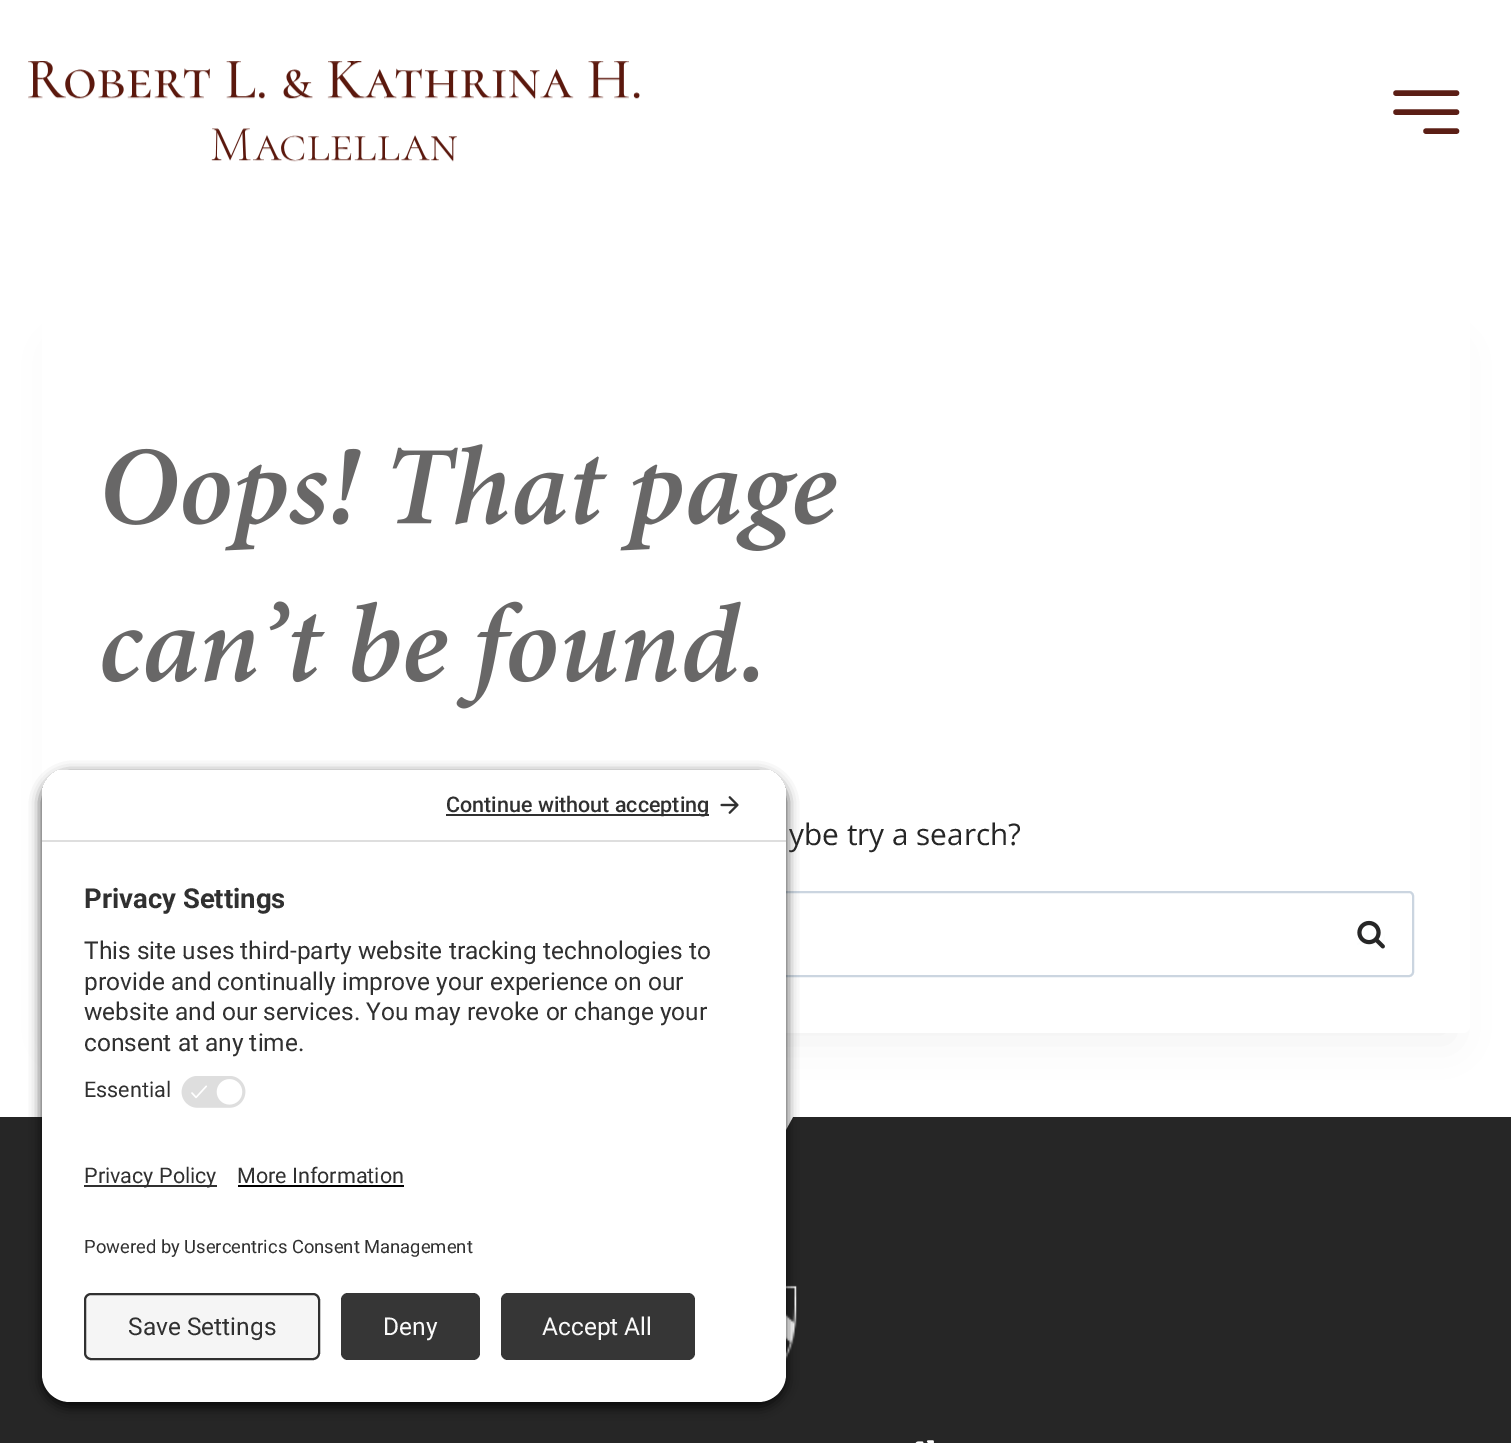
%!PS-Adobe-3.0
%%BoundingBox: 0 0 1511 1443
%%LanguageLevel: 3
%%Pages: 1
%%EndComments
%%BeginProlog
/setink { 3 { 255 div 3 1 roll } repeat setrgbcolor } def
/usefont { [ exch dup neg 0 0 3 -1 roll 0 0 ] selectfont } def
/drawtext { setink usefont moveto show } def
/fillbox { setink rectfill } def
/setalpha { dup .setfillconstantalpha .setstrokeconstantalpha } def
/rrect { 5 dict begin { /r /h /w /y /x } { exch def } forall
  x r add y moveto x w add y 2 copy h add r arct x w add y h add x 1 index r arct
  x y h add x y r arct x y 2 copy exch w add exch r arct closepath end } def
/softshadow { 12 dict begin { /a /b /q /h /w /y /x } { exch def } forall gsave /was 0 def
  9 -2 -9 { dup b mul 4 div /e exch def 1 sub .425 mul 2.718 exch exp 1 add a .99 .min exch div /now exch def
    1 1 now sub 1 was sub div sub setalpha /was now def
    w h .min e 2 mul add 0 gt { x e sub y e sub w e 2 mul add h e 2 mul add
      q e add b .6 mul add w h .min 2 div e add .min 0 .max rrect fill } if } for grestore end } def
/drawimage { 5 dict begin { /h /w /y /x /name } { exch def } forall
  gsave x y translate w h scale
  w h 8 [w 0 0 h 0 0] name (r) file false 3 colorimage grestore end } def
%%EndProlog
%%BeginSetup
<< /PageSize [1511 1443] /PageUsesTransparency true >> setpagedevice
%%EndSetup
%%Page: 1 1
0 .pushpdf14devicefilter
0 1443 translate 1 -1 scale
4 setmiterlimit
0 0 1511 1443 255 255 255 fillbox
0 0 0 setink
60 352 1393 689 0 22 0.05 softshadow
255 255 255 setink
42 308 1428 725 7 rrect fill
203 213 224 setink
2 setlinewidth
99 892 1314 84 4 rrect stroke
0 1117 1511 326 38 38 38 fillbox
255 255 255 setink
756 1184 moveto 718 1115 lineto 794 1115 lineto closepath fill
(assets/img7.rgb) 786 1285 11 76 drawimage
0 0 0 setink
42 774 744 633 28 6 0.8 softshadow
gsave
70 768 moveto 758 768 lineto 773.5 768 786 780.5 786 796 curveto 786 1136 lineto 42 1136 lineto 42 796 lineto 42 780.5 54.5 768 70 768 curveto closepath clip newpath
42 770 744 70 255 255 255 fillbox
grestore
42 840 744 2 222 222 222 fillbox
446 814 263 2 48 48 48 fillbox
(Continue without accepting) 446 812 /Roboto-Medium 21.5 48 48 48 drawtext
(assets/img1.rgb) 720 796 19 18 drawimage
42 842 744 294 255 255 255 fillbox
(Privacy Settings) 84 908 /Roboto-Bold 27.5 48 48 48 drawtext
(This site uses third-party website tracking technologies to) 84 959 /Roboto-Regular 24.5 48 48 48 drawtext
(provide and continually improve your experience on our) 84 990 /Roboto-Regular 24.5 48 48 48 drawtext
(website and our services. You may revoke or change your) 84 1020 /Roboto-Regular 24.5 48 48 48 drawtext
(consent at any time.) 84 1051 /Roboto-Regular 24.5 48 48 48 drawtext
(Essential) 84 1097 /Roboto-Regular 21.5 48 48 48 drawtext
(assets/img2.rgb) 181 1076 65 32 drawimage
255 255 255 setink
42 1136 moveto 786 1136 lineto 786 1374 lineto 786 1389.5 773.5 1402 758 1402 curveto 70 1402 lineto 54.5 1402 42 1389.5 42 1374 curveto closepath fill
84 1185 133 2 48 48 48 fillbox
(Privacy Policy) 84 1183 /Roboto-Regular 21.5 48 48 48 drawtext
(More Information) 237 1183 /Roboto-Regular 21.5 48 48 48 drawtext
238 1185 166 2 0 0 0 fillbox
(Powered by Usercentrics Consent Management) 84 1253 /Roboto-Regular 18.4 48 48 48 drawtext
245 245 245 setink
85 1294 234 65 6 rrect gsave fill grestore
48 48 48 setink
stroke
(Save Settings) 128 1335 /Roboto-Regular 24.5 48 48 48 drawtext
54 54 54 setink
341 1293 139 67 7 rrect fill
(Deny) 383 1335 /Roboto-Regular 24.5 250 250 250 drawtext
54 54 54 setink
501 1293 194 67 7 rrect fill
(Accept All) 542 1335 /Roboto-Regular 24.5 250 250 250 drawtext
(assets/img3.rgb) 28 61 612 101 drawimage
91 30 21 setink
5.5 setlinewidth
1 setlinecap
1 setlinejoin
1456.5 93 moveto 1396 93 lineto stroke
1456.5 112 moveto 1396 112 lineto stroke
1456.5 131 moveto 1426 131 lineto stroke
(assets/img4.rgb) 105 444 732 107 drawimage
(assets/img5.rgb) 102 601 657 108 drawimage
(ybe try a search?) 789 845 /OpenSans-Regular 29.75 38 38 38 drawtext
(assets/img6.rgb) 1357 920 28 29 drawimage
(assets/img8.rgb) 915 1440 19 3 drawimage
.poppdf14devicefilter showpage
%%EOF
